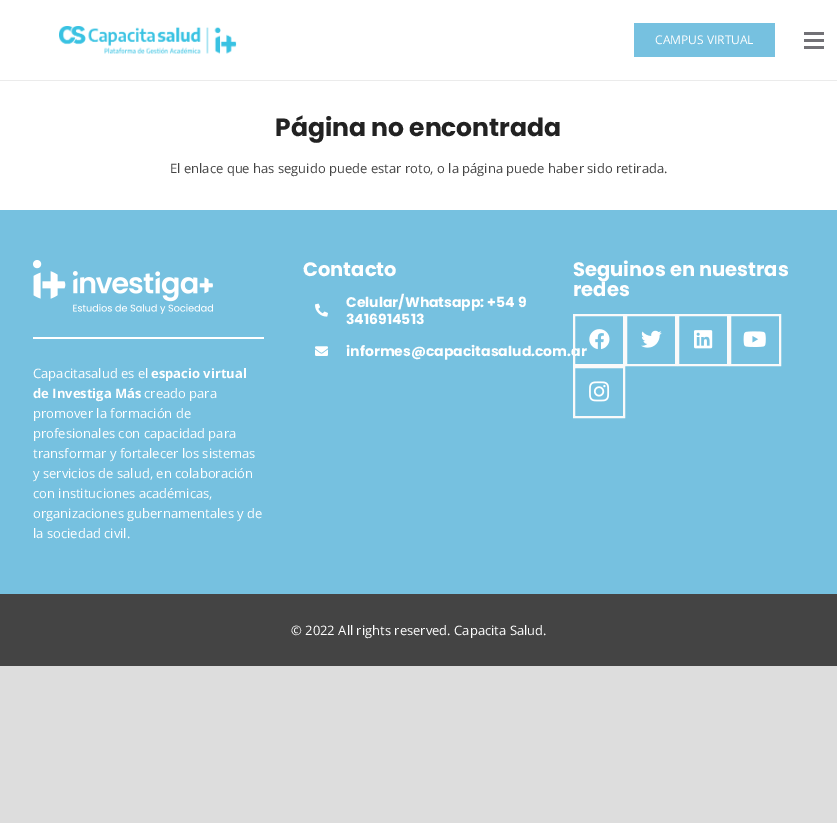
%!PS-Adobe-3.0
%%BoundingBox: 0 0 837 823
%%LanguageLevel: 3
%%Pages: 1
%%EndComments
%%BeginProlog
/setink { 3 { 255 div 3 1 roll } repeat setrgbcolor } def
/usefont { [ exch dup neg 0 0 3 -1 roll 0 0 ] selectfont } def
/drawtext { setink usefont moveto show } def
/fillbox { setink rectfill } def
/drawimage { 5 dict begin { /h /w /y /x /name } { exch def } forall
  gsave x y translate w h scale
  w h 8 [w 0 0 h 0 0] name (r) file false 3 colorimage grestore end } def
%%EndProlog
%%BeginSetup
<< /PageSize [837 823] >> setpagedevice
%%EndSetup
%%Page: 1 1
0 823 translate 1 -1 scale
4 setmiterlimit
0 0 837 823 221 221 221 fillbox
0 0 837 210 255 255 255 fillbox
0 80 837 1 235 235 235 fillbox
(assets/img1.rgb) 59 26 178 28 drawimage
634 23 141 34 118 193 224 fillbox
(CAMPUS VIRTUAL) 655 44 /OpenSans-Regular 12 255 255 255 drawtext
804 39 20 3 114 113 118 fillbox
804 32 20 3 114 113 118 fillbox
804 46 20 3 114 113 118 fillbox
(Página no encontrada) 275 136 /Poppins-Bold 25 34 34 34 drawtext
(El enlace que has seguido puede estar roto, o la página puede haber sido retirada.) 170 173 /OpenSans-Regular 13 68 68 68 drawtext
0 210 837 384 118 193 224 fillbox
(Contacto) 303 276 /Poppins-Bold 19.5 255 255 255 drawtext
(assets/img2.rgb) 315 303 13 14 drawimage
(Celular/Whatsapp: +54 9) 346 307 /Poppins-Bold 14 255 255 255 drawtext
(3416914513) 346 324 /Poppins-Bold 14 255 255 255 drawtext
(assets/img3.rgb) 315 346 13 10 drawimage
(informes@capacitasalud.com.ar) 346 356 /Poppins-Bold 14 255 255 255 drawtext
(Seguinos en nuestras) 573 276 /Poppins-Bold 19.5 255 255 255 drawtext
(redes) 573 296 /Poppins-Bold 19.5 255 255 255 drawtext
250 250 250 setink
2 setlinewidth
574 315 50 50 rectstroke
(assets/img4.rgb) 589 329 21 21 drawimage
626 315 50 50 rectstroke
(assets/img5.rgb) 641 330 21 18 drawimage
678 315 50 50 rectstroke
(assets/img6.rgb) 694 330 19 19 drawimage
730 315 50 50 rectstroke
(assets/img7.rgb) 743 331 23 16 drawimage
574 367 50 50 rectstroke
(assets/img8.rgb) 589 381 21 21 drawimage
(assets/img9.rgb) 33 260 180 54 drawimage
33 337 231 2 255 255 255 fillbox
(Capacitasalud es el) 33 378 /OpenSans-Regular 13 255 255 255 drawtext
(espacio virtual) 151 378 /OpenSans-Bold 13 255 255 255 drawtext
(de Investiga Más) 33 398 /OpenSans-Bold 13 255 255 255 drawtext
(creado para) 144 398 /OpenSans-Regular 13 255 255 255 drawtext
(promover la formación de) 33 418 /OpenSans-Regular 13 255 255 255 drawtext
(profesionales con capacidad para) 33 438 /OpenSans-Regular 13 255 255 255 drawtext
(transformar y fortalecer los sistemas) 33 458 /OpenSans-Regular 13 255 255 255 drawtext
(y servicios de salud, en colaboración) 33 478 /OpenSans-Regular 13 255 255 255 drawtext
(con instituciones académicas,) 33 498 /OpenSans-Regular 13 255 255 255 drawtext
(organizaciones gubernamentales y de) 33 518 /OpenSans-Regular 13 255 255 255 drawtext
(la sociedad civil.) 33 538 /OpenSans-Regular 13 255 255 255 drawtext
0 594 837 72 68 68 68 fillbox
(© 2022 All rights reserved. Capacita Salud.) 291 635 /OpenSans-Regular 13 255 255 255 drawtext
showpage
%%EOF
